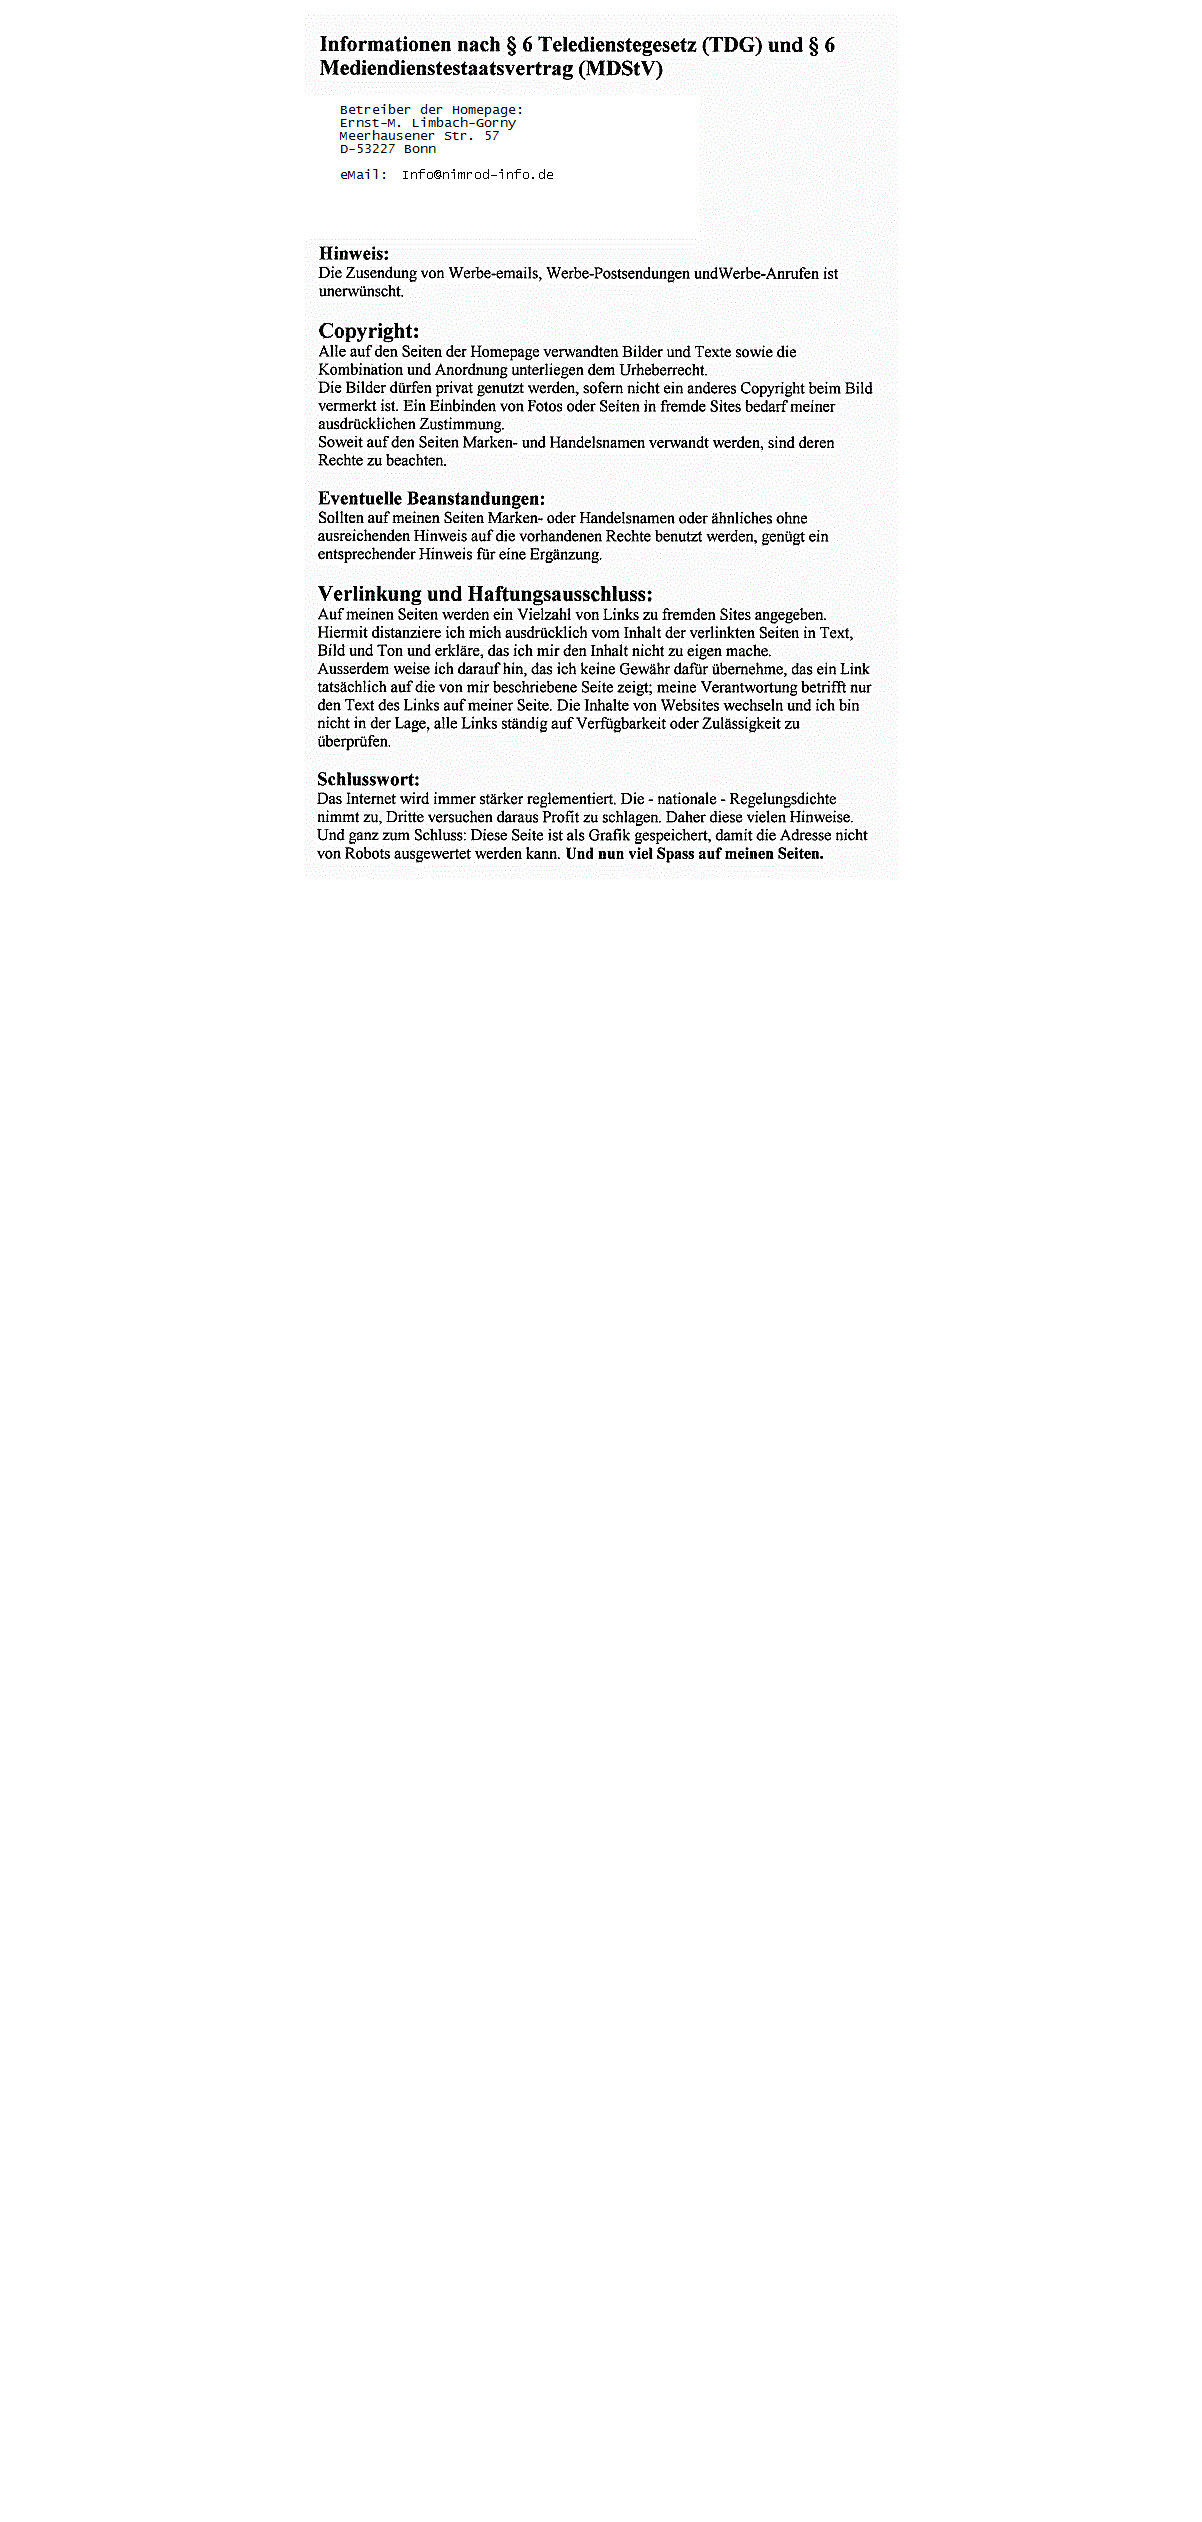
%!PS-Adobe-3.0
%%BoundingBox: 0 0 1202 2522
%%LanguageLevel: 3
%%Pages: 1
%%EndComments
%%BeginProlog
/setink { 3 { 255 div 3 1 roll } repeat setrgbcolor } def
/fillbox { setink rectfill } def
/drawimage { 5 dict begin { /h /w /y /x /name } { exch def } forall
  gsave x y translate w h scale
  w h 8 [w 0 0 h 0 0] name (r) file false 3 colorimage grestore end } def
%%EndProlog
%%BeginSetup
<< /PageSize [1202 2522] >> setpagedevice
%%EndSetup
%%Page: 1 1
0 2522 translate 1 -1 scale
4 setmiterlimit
0 0 1202 2522 255 255 255 fillbox
(assets/img1.rgb) 304 15 595 864 drawimage
showpage
%%EOF
